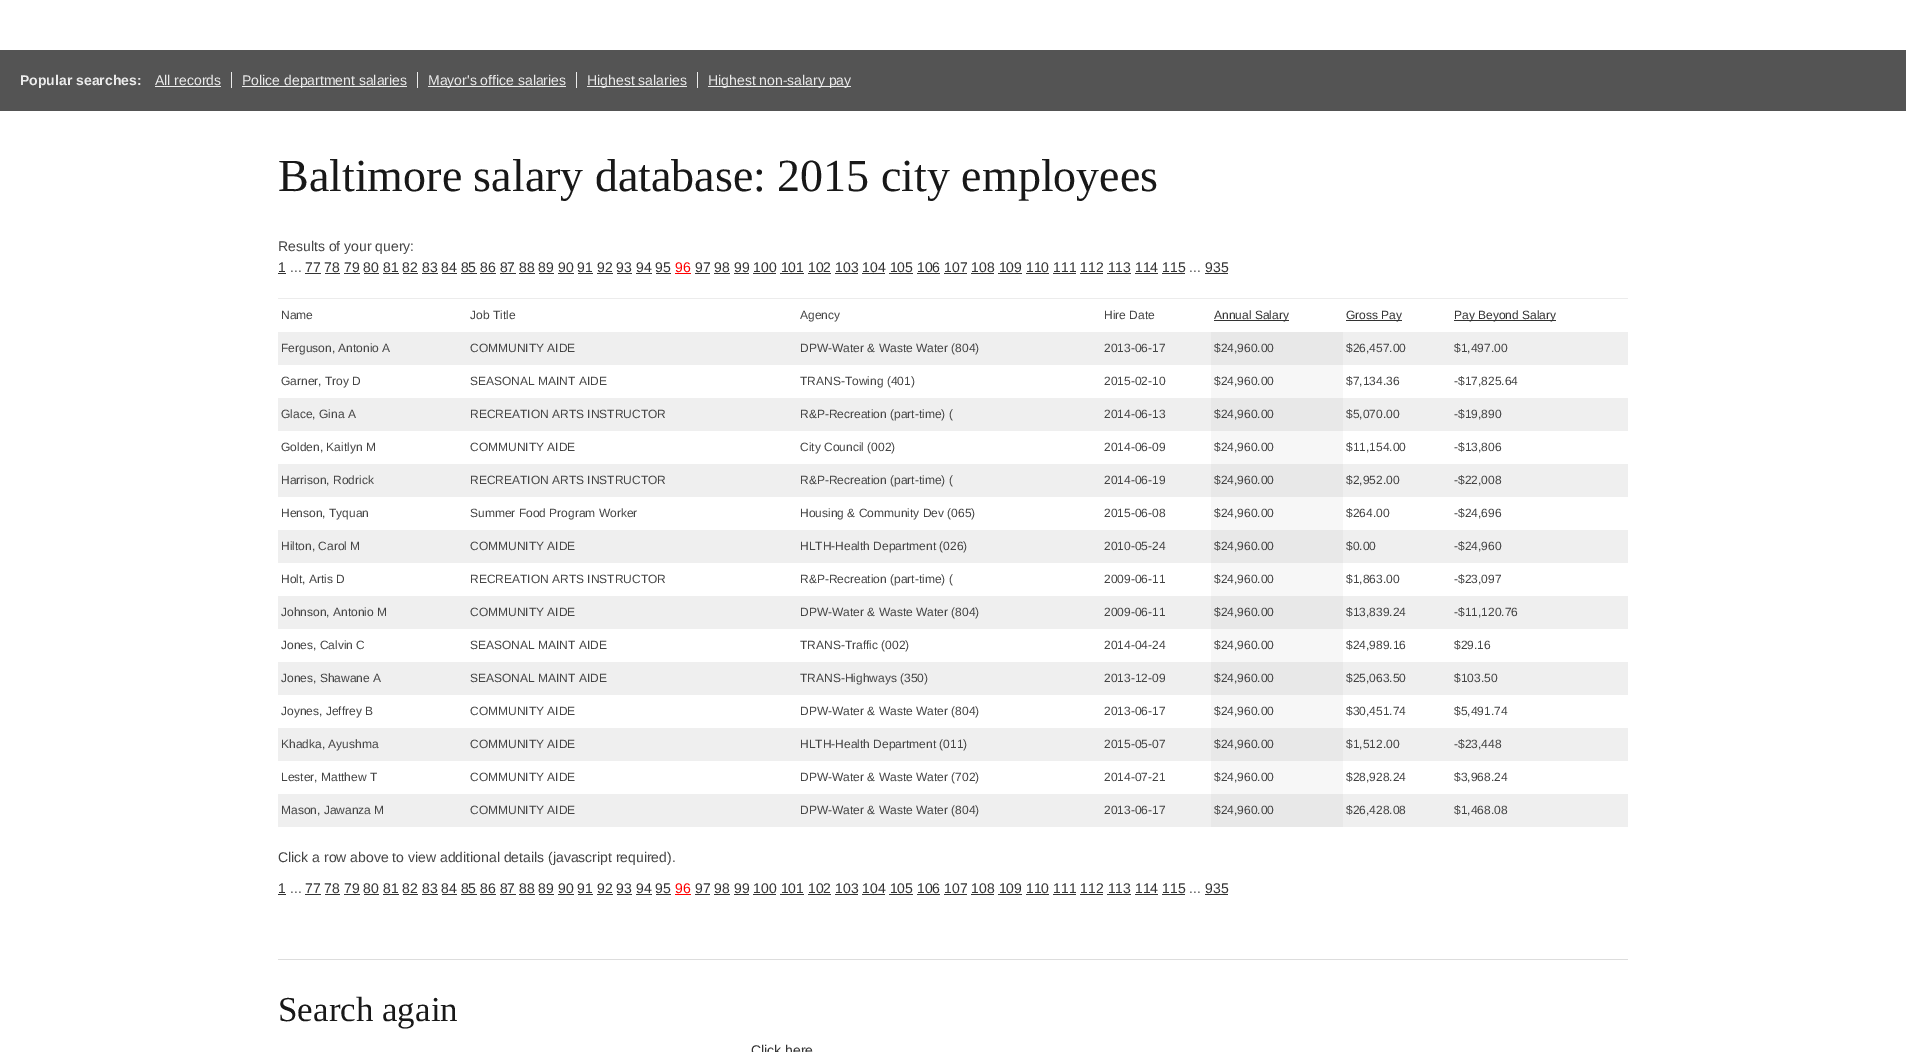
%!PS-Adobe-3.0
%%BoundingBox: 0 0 1906 1052
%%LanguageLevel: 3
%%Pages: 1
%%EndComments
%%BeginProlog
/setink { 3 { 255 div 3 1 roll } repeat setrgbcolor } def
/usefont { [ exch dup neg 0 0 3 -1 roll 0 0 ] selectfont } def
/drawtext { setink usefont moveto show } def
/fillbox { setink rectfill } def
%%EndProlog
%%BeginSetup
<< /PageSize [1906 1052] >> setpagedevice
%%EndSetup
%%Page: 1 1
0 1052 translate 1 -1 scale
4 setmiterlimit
0 0 1906 1052 255 255 255 fillbox
0 50 1906 61 84 84 84 fillbox
(Popular searches:) 20 85 /LiberationSans-Bold 14 236 236 236 drawtext
(All records) 155 85 /LiberationSans-Regular 14 236 236 236 drawtext
231 72 1 16 236 236 236 fillbox
155 86 66 1 236 236 236 fillbox
242 86 165 1 236 236 236 fillbox
(Police department salaries) 242 85 /LiberationSans-Regular 14 236 236 236 drawtext
417 72 1 16 236 236 236 fillbox
428 86 138 1 236 236 236 fillbox
(Mayor's office salaries) 428 85 /LiberationSans-Regular 14 236 236 236 drawtext
576 72 1 16 236 236 236 fillbox
587 86 100 1 236 236 236 fillbox
(Highest salaries) 587 85 /LiberationSans-Regular 14 236 236 236 drawtext
697 72 1 16 236 236 236 fillbox
708 86 143 1 236 236 236 fillbox
(Highest non-salary pay) 708 85 /LiberationSans-Regular 14 236 236 236 drawtext
(Baltimore salary database: 2015 city employees) 278 191 /LiberationSerif-Regular 46 24 24 24 drawtext
(Results of your query:) 278 251 /LiberationSans-Regular 14 68 68 68 drawtext
(1) 278 272 /LiberationSans-Regular 14 51 51 51 drawtext
278 273 8 1 51 51 51 fillbox
(...) 290 272 /LiberationSans-Regular 14 68 68 68 drawtext
(77 78 79 80 81 82 83 84 85 86 87 88 89 90 91 92 93 94 95) 305 272 /LiberationSans-Regular 14 51 51 51 drawtext
305 273 16 1 51 51 51 fillbox
(96) 675 272 /LiberationSans-Regular 14 255 0 0 drawtext
675 273 16 1 255 0 0 fillbox
(97 98 99 100 101 102 103 104 105 106 107 108 109 110 111 112 113 114 115) 695 272 /LiberationSans-Regular 14 51 51 51 drawtext
695 273 15 1 51 51 51 fillbox
(...) 1189 272 /LiberationSans-Regular 14 68 68 68 drawtext
(935) 1205 272 /LiberationSans-Regular 14 51 51 51 drawtext
1205 273 23 1 51 51 51 fillbox
325 273 15 1 51 51 51 fillbox
344 273 16 1 51 51 51 fillbox
364 273 15 1 51 51 51 fillbox
383 273 16 1 51 51 51 fillbox
403 273 15 1 51 51 51 fillbox
422 273 16 1 51 51 51 fillbox
442 273 15 1 51 51 51 fillbox
461 273 16 1 51 51 51 fillbox
480 273 16 1 51 51 51 fillbox
500 273 16 1 51 51 51 fillbox
519 273 16 1 51 51 51 fillbox
539 273 15 1 51 51 51 fillbox
558 273 16 1 51 51 51 fillbox
578 273 15 1 51 51 51 fillbox
597 273 16 1 51 51 51 fillbox
617 273 15 1 51 51 51 fillbox
636 273 16 1 51 51 51 fillbox
656 273 15 1 51 51 51 fillbox
714 273 16 1 51 51 51 fillbox
734 273 15 1 51 51 51 fillbox
753 273 23 1 51 51 51 fillbox
780 273 24 1 51 51 51 fillbox
808 273 23 1 51 51 51 fillbox
835 273 23 1 51 51 51 fillbox
862 273 23 1 51 51 51 fillbox
889 273 24 1 51 51 51 fillbox
917 273 23 1 51 51 51 fillbox
944 273 23 1 51 51 51 fillbox
971 273 23 1 51 51 51 fillbox
998 273 24 1 51 51 51 fillbox
1026 273 23 1 51 51 51 fillbox
1053 273 23 1 51 51 51 fillbox
1080 273 23 1 51 51 51 fillbox
1107 273 24 1 51 51 51 fillbox
1135 273 23 1 51 51 51 fillbox
1162 273 23 1 51 51 51 fillbox
278 298 1350 1 236 236 236 fillbox
(Name) 281 319 /LiberationSans-Regular 12 68 68 68 drawtext
(Job Title) 470 319 /LiberationSans-Regular 12 68 68 68 drawtext
(Agency) 800 319 /LiberationSans-Regular 12 68 68 68 drawtext
(Hire Date) 1104 319 /LiberationSans-Regular 12 68 68 68 drawtext
1214 320 75 1 51 51 51 fillbox
(Annual Salary) 1214 319 /LiberationSans-Regular 12 51 51 51 drawtext
1346 320 56 1 51 51 51 fillbox
(Gross Pay) 1346 319 /LiberationSans-Regular 12 51 51 51 drawtext
1454 320 102 1 51 51 51 fillbox
(Pay Beyond Salary) 1454 319 /LiberationSans-Regular 12 51 51 51 drawtext
278 332 1350 33 239 239 239 fillbox
(Ferguson, Antonio A) 281 352 /LiberationSans-Regular 12 68 68 68 drawtext
(COMMUNITY AIDE) 470 352 /LiberationSans-Regular 12 68 68 68 drawtext
(DPW-Water & Waste Water \(804\)) 800 352 /LiberationSans-Regular 12 68 68 68 drawtext
(2013-06-17) 1104 352 /LiberationSans-Regular 12 68 68 68 drawtext
1211 332 132 33 232 232 232 fillbox
($24,960.00) 1214 352 /LiberationSans-Regular 12 68 68 68 drawtext
($26,457.00) 1346 352 /LiberationSans-Regular 12 68 68 68 drawtext
($1,497.00) 1454 352 /LiberationSans-Regular 12 68 68 68 drawtext
(Garner, Troy D) 281 385 /LiberationSans-Regular 12 68 68 68 drawtext
(SEASONAL MAINT AIDE) 470 385 /LiberationSans-Regular 12 68 68 68 drawtext
(TRANS-Towing \(401\)) 800 385 /LiberationSans-Regular 12 68 68 68 drawtext
(2015-02-10) 1104 385 /LiberationSans-Regular 12 68 68 68 drawtext
1211 365 132 33 247 247 247 fillbox
($24,960.00) 1214 385 /LiberationSans-Regular 12 68 68 68 drawtext
($7,134.36) 1346 385 /LiberationSans-Regular 12 68 68 68 drawtext
(-$17,825.64) 1454 385 /LiberationSans-Regular 12 68 68 68 drawtext
278 398 1350 33 239 239 239 fillbox
(Glace, Gina A) 281 418 /LiberationSans-Regular 12 68 68 68 drawtext
(RECREATION ARTS INSTRUCTOR) 470 418 /LiberationSans-Regular 12 68 68 68 drawtext
(R&P-Recreation \(part-time\) \() 800 418 /LiberationSans-Regular 12 68 68 68 drawtext
(2014-06-13) 1104 418 /LiberationSans-Regular 12 68 68 68 drawtext
1211 398 132 33 232 232 232 fillbox
($24,960.00) 1214 418 /LiberationSans-Regular 12 68 68 68 drawtext
($5,070.00) 1346 418 /LiberationSans-Regular 12 68 68 68 drawtext
(-$19,890) 1454 418 /LiberationSans-Regular 12 68 68 68 drawtext
(Golden, Kaitlyn M) 281 451 /LiberationSans-Regular 12 68 68 68 drawtext
(COMMUNITY AIDE) 470 451 /LiberationSans-Regular 12 68 68 68 drawtext
(City Council \(002\)) 800 451 /LiberationSans-Regular 12 68 68 68 drawtext
(2014-06-09) 1104 451 /LiberationSans-Regular 12 68 68 68 drawtext
1211 431 132 33 247 247 247 fillbox
($24,960.00) 1214 451 /LiberationSans-Regular 12 68 68 68 drawtext
($11,154.00) 1346 451 /LiberationSans-Regular 12 68 68 68 drawtext
(-$13,806) 1454 451 /LiberationSans-Regular 12 68 68 68 drawtext
278 464 1350 33 239 239 239 fillbox
(Harrison, Rodrick) 281 484 /LiberationSans-Regular 12 68 68 68 drawtext
(RECREATION ARTS INSTRUCTOR) 470 484 /LiberationSans-Regular 12 68 68 68 drawtext
(R&P-Recreation \(part-time\) \() 800 484 /LiberationSans-Regular 12 68 68 68 drawtext
(2014-06-19) 1104 484 /LiberationSans-Regular 12 68 68 68 drawtext
1211 464 132 33 232 232 232 fillbox
($24,960.00) 1214 484 /LiberationSans-Regular 12 68 68 68 drawtext
($2,952.00) 1346 484 /LiberationSans-Regular 12 68 68 68 drawtext
(-$22,008) 1454 484 /LiberationSans-Regular 12 68 68 68 drawtext
(Henson, Tyquan) 281 517 /LiberationSans-Regular 12 68 68 68 drawtext
(Summer Food Program Worker) 470 517 /LiberationSans-Regular 12 68 68 68 drawtext
(Housing & Community Dev \(065\)) 800 517 /LiberationSans-Regular 12 68 68 68 drawtext
(2015-06-08) 1104 517 /LiberationSans-Regular 12 68 68 68 drawtext
1211 497 132 33 247 247 247 fillbox
($24,960.00) 1214 517 /LiberationSans-Regular 12 68 68 68 drawtext
($264.00) 1346 517 /LiberationSans-Regular 12 68 68 68 drawtext
(-$24,696) 1454 517 /LiberationSans-Regular 12 68 68 68 drawtext
278 530 1350 33 239 239 239 fillbox
(Hilton, Carol M) 281 550 /LiberationSans-Regular 12 68 68 68 drawtext
(COMMUNITY AIDE) 470 550 /LiberationSans-Regular 12 68 68 68 drawtext
(HLTH-Health Department \(026\)) 800 550 /LiberationSans-Regular 12 68 68 68 drawtext
(2010-05-24) 1104 550 /LiberationSans-Regular 12 68 68 68 drawtext
1211 530 132 33 232 232 232 fillbox
($24,960.00) 1214 550 /LiberationSans-Regular 12 68 68 68 drawtext
($0.00) 1346 550 /LiberationSans-Regular 12 68 68 68 drawtext
(-$24,960) 1454 550 /LiberationSans-Regular 12 68 68 68 drawtext
(Holt, Artis D) 281 583 /LiberationSans-Regular 12 68 68 68 drawtext
(RECREATION ARTS INSTRUCTOR) 470 583 /LiberationSans-Regular 12 68 68 68 drawtext
(R&P-Recreation \(part-time\) \() 800 583 /LiberationSans-Regular 12 68 68 68 drawtext
(2009-06-11) 1104 583 /LiberationSans-Regular 12 68 68 68 drawtext
1211 563 132 33 247 247 247 fillbox
($24,960.00) 1214 583 /LiberationSans-Regular 12 68 68 68 drawtext
($1,863.00) 1346 583 /LiberationSans-Regular 12 68 68 68 drawtext
(-$23,097) 1454 583 /LiberationSans-Regular 12 68 68 68 drawtext
278 596 1350 33 239 239 239 fillbox
(Johnson, Antonio M) 281 616 /LiberationSans-Regular 12 68 68 68 drawtext
(COMMUNITY AIDE) 470 616 /LiberationSans-Regular 12 68 68 68 drawtext
(DPW-Water & Waste Water \(804\)) 800 616 /LiberationSans-Regular 12 68 68 68 drawtext
(2009-06-11) 1104 616 /LiberationSans-Regular 12 68 68 68 drawtext
1211 596 132 33 232 232 232 fillbox
($24,960.00) 1214 616 /LiberationSans-Regular 12 68 68 68 drawtext
($13,839.24) 1346 616 /LiberationSans-Regular 12 68 68 68 drawtext
(-$11,120.76) 1454 616 /LiberationSans-Regular 12 68 68 68 drawtext
(Jones, Calvin C) 281 649 /LiberationSans-Regular 12 68 68 68 drawtext
(SEASONAL MAINT AIDE) 470 649 /LiberationSans-Regular 12 68 68 68 drawtext
(TRANS-Traffic \(002\)) 800 649 /LiberationSans-Regular 12 68 68 68 drawtext
(2014-04-24) 1104 649 /LiberationSans-Regular 12 68 68 68 drawtext
1211 629 132 33 247 247 247 fillbox
($24,960.00) 1214 649 /LiberationSans-Regular 12 68 68 68 drawtext
($24,989.16) 1346 649 /LiberationSans-Regular 12 68 68 68 drawtext
($29.16) 1454 649 /LiberationSans-Regular 12 68 68 68 drawtext
278 662 1350 33 239 239 239 fillbox
(Jones, Shawane A) 281 682 /LiberationSans-Regular 12 68 68 68 drawtext
(SEASONAL MAINT AIDE) 470 682 /LiberationSans-Regular 12 68 68 68 drawtext
(TRANS-Highways \(350\)) 800 682 /LiberationSans-Regular 12 68 68 68 drawtext
(2013-12-09) 1104 682 /LiberationSans-Regular 12 68 68 68 drawtext
1211 662 132 33 232 232 232 fillbox
($24,960.00) 1214 682 /LiberationSans-Regular 12 68 68 68 drawtext
($25,063.50) 1346 682 /LiberationSans-Regular 12 68 68 68 drawtext
($103.50) 1454 682 /LiberationSans-Regular 12 68 68 68 drawtext
(Joynes, Jeffrey B) 281 715 /LiberationSans-Regular 12 68 68 68 drawtext
(COMMUNITY AIDE) 470 715 /LiberationSans-Regular 12 68 68 68 drawtext
(DPW-Water & Waste Water \(804\)) 800 715 /LiberationSans-Regular 12 68 68 68 drawtext
(2013-06-17) 1104 715 /LiberationSans-Regular 12 68 68 68 drawtext
1211 695 132 33 247 247 247 fillbox
($24,960.00) 1214 715 /LiberationSans-Regular 12 68 68 68 drawtext
($30,451.74) 1346 715 /LiberationSans-Regular 12 68 68 68 drawtext
($5,491.74) 1454 715 /LiberationSans-Regular 12 68 68 68 drawtext
278 728 1350 33 239 239 239 fillbox
(Khadka, Ayushma) 281 748 /LiberationSans-Regular 12 68 68 68 drawtext
(COMMUNITY AIDE) 470 748 /LiberationSans-Regular 12 68 68 68 drawtext
(HLTH-Health Department \(011\)) 800 748 /LiberationSans-Regular 12 68 68 68 drawtext
(2015-05-07) 1104 748 /LiberationSans-Regular 12 68 68 68 drawtext
1211 728 132 33 232 232 232 fillbox
($24,960.00) 1214 748 /LiberationSans-Regular 12 68 68 68 drawtext
($1,512.00) 1346 748 /LiberationSans-Regular 12 68 68 68 drawtext
(-$23,448) 1454 748 /LiberationSans-Regular 12 68 68 68 drawtext
(Lester, Matthew T) 281 781 /LiberationSans-Regular 12 68 68 68 drawtext
(COMMUNITY AIDE) 470 781 /LiberationSans-Regular 12 68 68 68 drawtext
(DPW-Water & Waste Water \(702\)) 800 781 /LiberationSans-Regular 12 68 68 68 drawtext
(2014-07-21) 1104 781 /LiberationSans-Regular 12 68 68 68 drawtext
1211 761 132 33 247 247 247 fillbox
($24,960.00) 1214 781 /LiberationSans-Regular 12 68 68 68 drawtext
($28,928.24) 1346 781 /LiberationSans-Regular 12 68 68 68 drawtext
($3,968.24) 1454 781 /LiberationSans-Regular 12 68 68 68 drawtext
278 794 1350 33 239 239 239 fillbox
(Mason, Jawanza M) 281 814 /LiberationSans-Regular 12 68 68 68 drawtext
(COMMUNITY AIDE) 470 814 /LiberationSans-Regular 12 68 68 68 drawtext
(DPW-Water & Waste Water \(804\)) 800 814 /LiberationSans-Regular 12 68 68 68 drawtext
(2013-06-17) 1104 814 /LiberationSans-Regular 12 68 68 68 drawtext
1211 794 132 33 232 232 232 fillbox
($24,960.00) 1214 814 /LiberationSans-Regular 12 68 68 68 drawtext
($26,428.08) 1346 814 /LiberationSans-Regular 12 68 68 68 drawtext
($1,468.08) 1454 814 /LiberationSans-Regular 12 68 68 68 drawtext
(Click a row above to view additional details \(javascript required\).) 278 862 /LiberationSans-Regular 14 68 68 68 drawtext
(1) 278 893 /LiberationSans-Regular 14 51 51 51 drawtext
278 894 8 1 51 51 51 fillbox
(...) 290 893 /LiberationSans-Regular 14 68 68 68 drawtext
(77 78 79 80 81 82 83 84 85 86 87 88 89 90 91 92 93 94 95) 305 893 /LiberationSans-Regular 14 51 51 51 drawtext
305 894 16 1 51 51 51 fillbox
(96) 675 893 /LiberationSans-Regular 14 255 0 0 drawtext
675 894 16 1 255 0 0 fillbox
(97 98 99 100 101 102 103 104 105 106 107 108 109 110 111 112 113 114 115) 695 893 /LiberationSans-Regular 14 51 51 51 drawtext
695 894 15 1 51 51 51 fillbox
(...) 1189 893 /LiberationSans-Regular 14 68 68 68 drawtext
(935) 1205 893 /LiberationSans-Regular 14 51 51 51 drawtext
1205 894 23 1 51 51 51 fillbox
325 894 15 1 51 51 51 fillbox
344 894 16 1 51 51 51 fillbox
364 894 15 1 51 51 51 fillbox
383 894 16 1 51 51 51 fillbox
403 894 15 1 51 51 51 fillbox
422 894 16 1 51 51 51 fillbox
442 894 15 1 51 51 51 fillbox
461 894 16 1 51 51 51 fillbox
480 894 16 1 51 51 51 fillbox
500 894 16 1 51 51 51 fillbox
519 894 16 1 51 51 51 fillbox
539 894 15 1 51 51 51 fillbox
558 894 16 1 51 51 51 fillbox
578 894 15 1 51 51 51 fillbox
597 894 16 1 51 51 51 fillbox
617 894 15 1 51 51 51 fillbox
636 894 16 1 51 51 51 fillbox
656 894 15 1 51 51 51 fillbox
714 894 16 1 51 51 51 fillbox
734 894 15 1 51 51 51 fillbox
753 894 23 1 51 51 51 fillbox
780 894 24 1 51 51 51 fillbox
808 894 23 1 51 51 51 fillbox
835 894 23 1 51 51 51 fillbox
862 894 23 1 51 51 51 fillbox
889 894 24 1 51 51 51 fillbox
917 894 23 1 51 51 51 fillbox
944 894 23 1 51 51 51 fillbox
971 894 23 1 51 51 51 fillbox
998 894 24 1 51 51 51 fillbox
1026 894 23 1 51 51 51 fillbox
1053 894 23 1 51 51 51 fillbox
1080 894 23 1 51 51 51 fillbox
1107 894 24 1 51 51 51 fillbox
1135 894 23 1 51 51 51 fillbox
1162 894 23 1 51 51 51 fillbox
278 959 1350 1 221 221 221 fillbox
(Search again) 278 1021 /LiberationSerif-Regular 35 24 24 24 drawtext
(Click here) 751 1055 /LiberationSans-Regular 14 51 51 51 drawtext
showpage
%%EOF
